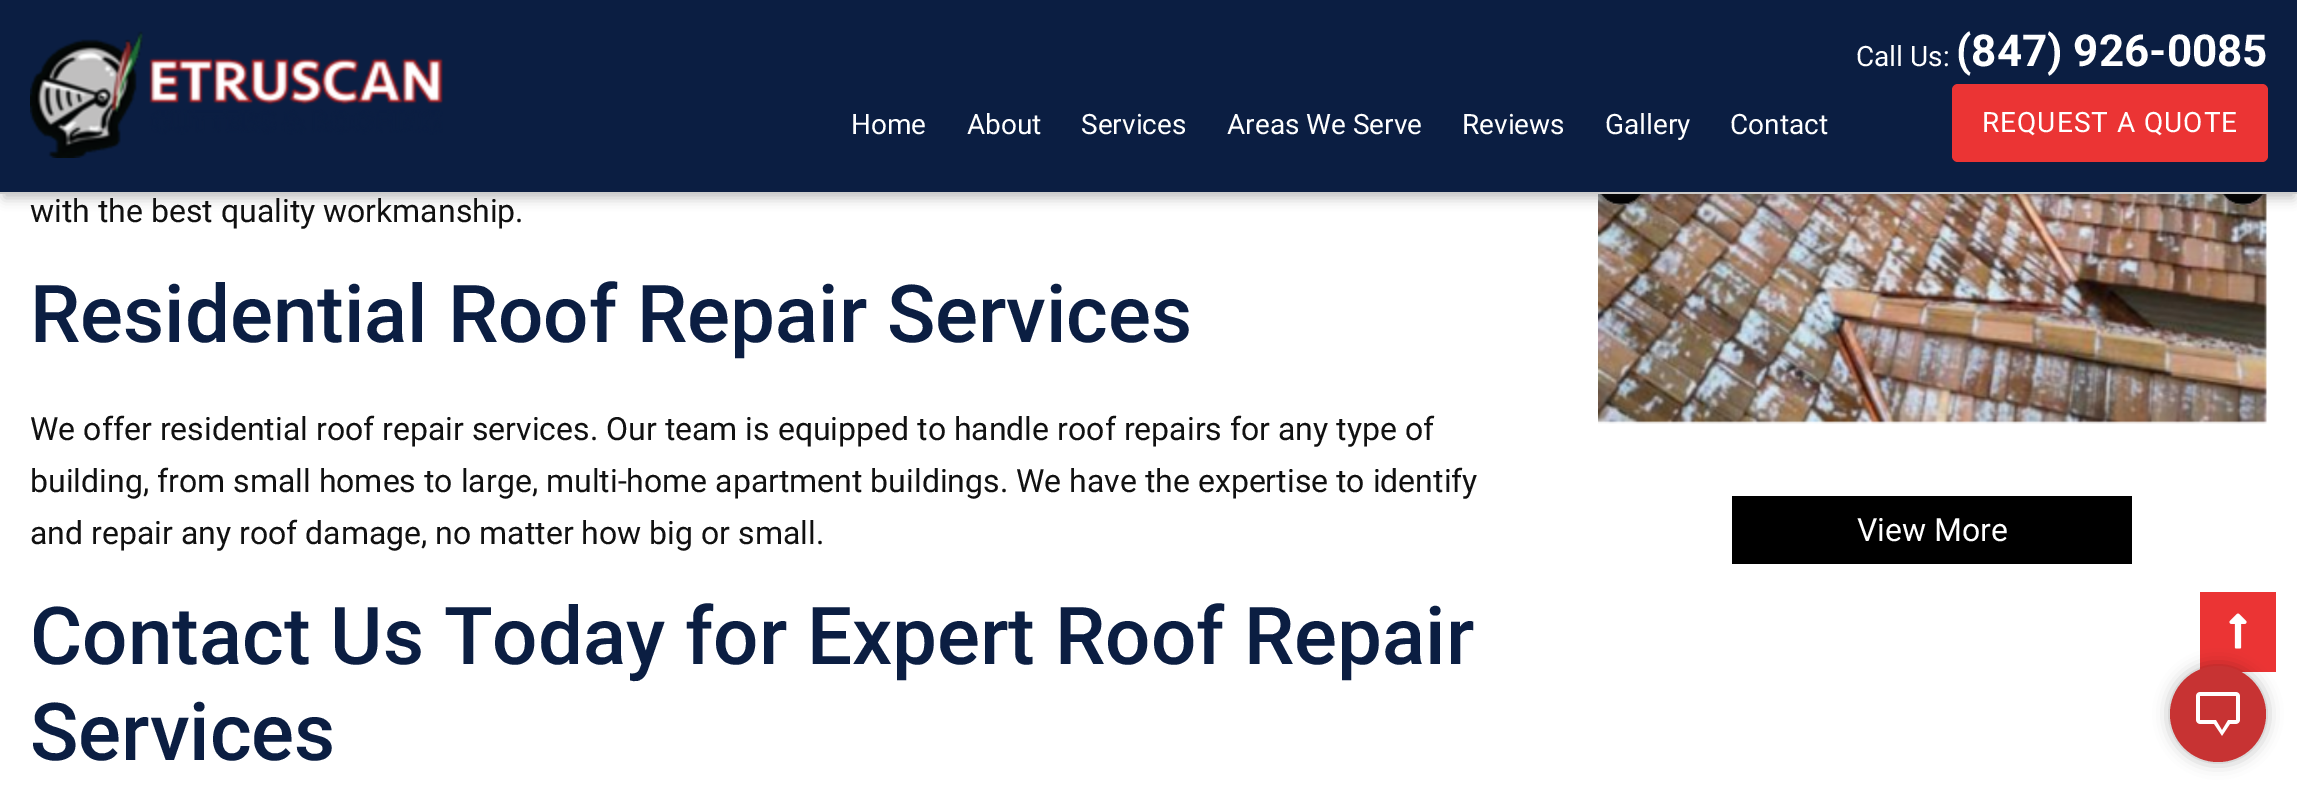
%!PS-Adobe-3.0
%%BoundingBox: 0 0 2297 794
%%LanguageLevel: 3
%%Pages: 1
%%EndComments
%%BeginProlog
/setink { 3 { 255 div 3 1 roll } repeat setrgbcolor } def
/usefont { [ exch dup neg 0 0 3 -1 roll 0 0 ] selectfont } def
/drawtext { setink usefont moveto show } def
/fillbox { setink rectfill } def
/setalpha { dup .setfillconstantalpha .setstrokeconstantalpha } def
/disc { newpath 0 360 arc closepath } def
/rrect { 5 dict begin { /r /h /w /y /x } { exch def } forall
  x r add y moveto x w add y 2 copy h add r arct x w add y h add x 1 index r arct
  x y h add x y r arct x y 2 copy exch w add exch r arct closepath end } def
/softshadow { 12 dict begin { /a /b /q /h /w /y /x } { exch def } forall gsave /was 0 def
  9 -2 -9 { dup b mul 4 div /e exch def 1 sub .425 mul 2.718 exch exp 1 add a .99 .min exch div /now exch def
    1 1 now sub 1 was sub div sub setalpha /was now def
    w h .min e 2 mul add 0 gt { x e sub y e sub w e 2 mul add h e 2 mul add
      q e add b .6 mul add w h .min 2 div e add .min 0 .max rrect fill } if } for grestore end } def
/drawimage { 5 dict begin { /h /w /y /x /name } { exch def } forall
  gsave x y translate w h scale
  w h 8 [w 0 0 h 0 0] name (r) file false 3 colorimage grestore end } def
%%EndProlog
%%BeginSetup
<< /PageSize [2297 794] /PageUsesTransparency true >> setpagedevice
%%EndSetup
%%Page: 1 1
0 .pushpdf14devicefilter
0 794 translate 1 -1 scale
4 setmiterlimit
0 0 2297 794 255 255 255 fillbox
(assets/img2.rgb) 1598 194 669 230 drawimage
(assets/img3.rgb) 1600 194 42 11 drawimage
(assets/img4.rgb) 2222 194 42 11 drawimage
32 33 36 setink
4 12 2290 186 0 6 0.28 softshadow
0 0 2297 192 11 30 66 fillbox
0 192 2297 2 204 204 204 fillbox
(assets/img1.rgb) 30 31 413 127 drawimage
(Home) 851 134 /Roboto-Regular 28 255 255 255 drawtext
(About) 967 134 /Roboto-Regular 28 255 255 255 drawtext
(Services) 1081 134 /Roboto-Regular 28 255 255 255 drawtext
(Areas We Serve) 1227 134 /Roboto-Regular 28 255 255 255 drawtext
(Reviews) 1462 134 /Roboto-Regular 28 255 255 255 drawtext
(Gallery) 1605 134 /Roboto-Regular 28 255 255 255 drawtext
(Contact) 1730 134 /Roboto-Regular 28 255 255 255 drawtext
(Call Us:) 1856 66 /Roboto-Regular 28 255 255 255 drawtext
(\(847\) 926-0085) 1956 66 /Roboto-Bold 44 255 255 255 drawtext
235 52 52 setink
1952 84 316 78 6 rrect fill
/Roboto-Regular 28 usefont
255 255 255 setink
1982 132 moveto 1 0 (REQUEST A QUOTE) ashow
(with the best quality workmanship.) 30 222 /Roboto-Regular 32 17 17 17 drawtext
(Residential Roof Repair Services) 30 342 /Roboto-Medium 80 11 30 66 drawtext
(We offer residential roof repair services. Our team is equipped to handle roof repairs for any type of) 30 440 /Roboto-Regular 32 17 17 17 drawtext
(building, from small homes to large, multi-home apartment buildings. We have the expertise to identify) 30 492 /Roboto-Regular 32 17 17 17 drawtext
(and repair any roof damage, no matter how big or small.) 30 544 /Roboto-Regular 32 17 17 17 drawtext
(Contact Us Today for Expert Roof Repair) 30 664 /Roboto-Medium 80 11 30 66 drawtext
(Services) 30 760 /Roboto-Medium 80 11 30 66 drawtext
1732 496 400 68 0 0 0 fillbox
(View More) 1857 541 /Roboto-Regular 32 255 255 255 drawtext
2200 592 76 80 235 52 52 fillbox
(assets/img5.rgb) 2229 613 18 36 drawimage
0 0 0 setink
2170 666 96 96 48 8 0.3 softshadow
199 51 51 setink
2218 714 48 disc fill
(assets/img6.rgb) 2196 692 44 44 drawimage
.poppdf14devicefilter showpage
%%EOF
